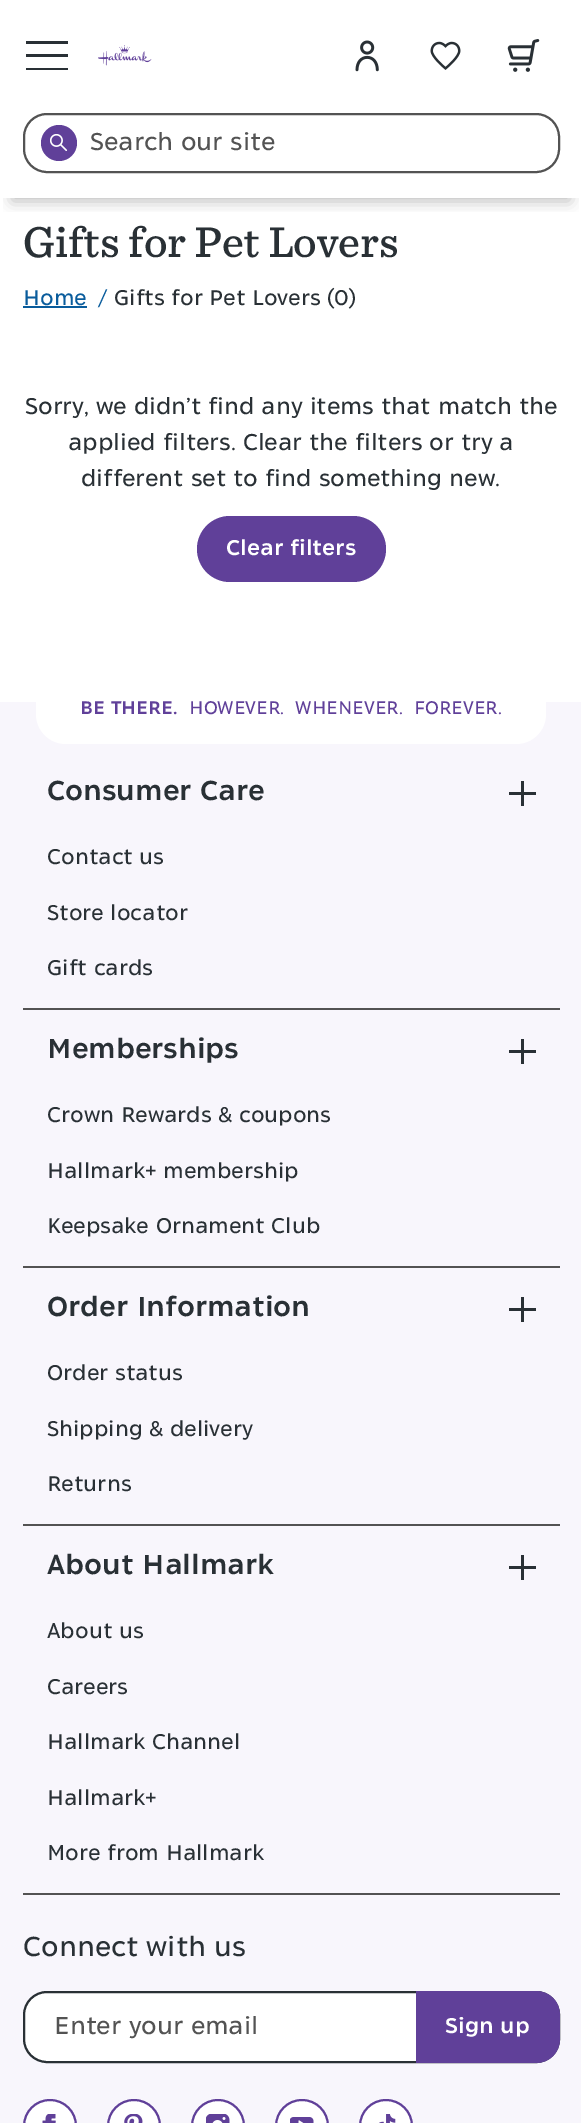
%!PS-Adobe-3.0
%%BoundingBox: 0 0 581 2123
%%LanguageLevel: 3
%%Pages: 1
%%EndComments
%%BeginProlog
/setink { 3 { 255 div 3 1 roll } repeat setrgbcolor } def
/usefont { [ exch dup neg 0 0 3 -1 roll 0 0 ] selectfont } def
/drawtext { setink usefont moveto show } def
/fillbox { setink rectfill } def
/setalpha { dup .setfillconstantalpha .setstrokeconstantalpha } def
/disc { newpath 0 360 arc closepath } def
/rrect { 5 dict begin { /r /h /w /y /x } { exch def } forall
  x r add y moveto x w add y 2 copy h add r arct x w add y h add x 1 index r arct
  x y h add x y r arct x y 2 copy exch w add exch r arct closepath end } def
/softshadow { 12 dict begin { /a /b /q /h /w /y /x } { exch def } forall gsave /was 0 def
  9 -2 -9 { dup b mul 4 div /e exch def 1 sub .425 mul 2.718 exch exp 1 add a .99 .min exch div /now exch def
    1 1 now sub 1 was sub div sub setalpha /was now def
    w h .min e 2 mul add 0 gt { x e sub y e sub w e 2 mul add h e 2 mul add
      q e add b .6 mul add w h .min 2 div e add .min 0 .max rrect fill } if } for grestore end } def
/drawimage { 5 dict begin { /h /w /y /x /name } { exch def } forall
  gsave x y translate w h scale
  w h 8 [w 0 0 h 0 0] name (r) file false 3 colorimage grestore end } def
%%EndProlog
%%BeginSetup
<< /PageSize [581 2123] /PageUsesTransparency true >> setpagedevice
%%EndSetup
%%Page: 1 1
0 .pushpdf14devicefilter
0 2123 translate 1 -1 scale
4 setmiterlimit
0 0 581 2123 255 255 255 fillbox
gsave
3 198 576 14 rectclip
0 0 0 setink
12 27 558 174 0 7.5 0.25 softshadow
grestore
gsave
26 41 42 30 rectclip
41 48 53 setink
26 40 moveto 68 40 lineto 68 44 lineto 26 44 lineto closepath 26 54 moveto 68 54 lineto 68 57 lineto 26 57 lineto closepath 26 68 moveto 68 68 lineto 68 70 lineto 26 70 lineto closepath eofill
grestore
(assets/img1.rgb) 98 45 54 21 drawimage
(assets/img2.rgb) 355 40 24 32 drawimage
(assets/img3.rgb) 430 41 31 29 drawimage
(assets/img4.rgb) 507 39 33 33 drawimage
83 83 83 setink
2 setlinewidth
24 114 535 58 23 rrect stroke
96 64 153 setink
59 143 18 disc fill
(assets/img5.rgb) 50 134 18 17 drawimage
(Search our site) 90 150 /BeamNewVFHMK-Thin 24 83 83 83 drawtext
(Gifts for Pet Lovers) 23 257 /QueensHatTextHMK-Medium 45 41 48 53 drawtext
(Home) 23 305 /BeamNewVFHMK-Thin 21 9 92 156 drawtext
23 306 64 2 9 92 156 fillbox
(/) 98 305 /BeamNewVFHMK-Thin 21 9 92 156 drawtext
(Gifts for Pet Lovers \(0\)) 114 305 /BeamNewVFHMK-Thin 21 41 48 53 drawtext
(Sorry, we didn’t find any items that match the) 25 414 /BeamNewVFHMK-Thin 22.5 41 48 53 drawtext
(applied filters. Clear the filters or try a) 68 450 /BeamNewVFHMK-Thin 22.5 41 48 53 drawtext
(different set to find something new.) 81 486 /BeamNewVFHMK-Thin 22.5 41 48 53 drawtext
96 64 153 setink
197 516 189 66 33 rrect fill
(Clear filters) 226 555 /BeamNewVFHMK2-Thin 21 255 255 255 drawtext
0 702 581 1421 248 246 252 fillbox
255 255 255 setink
36 672 510 72 30 rrect fill
(BE THERE.) 80 714 /BeamNewVFHMK2-Thin 18 96 64 153 drawtext
(HOWEVER.  WHENEVER.  FOREVER.) 189 714 /BeamNewVFHMK-Thin 18 96 64 153 drawtext
83 83 83 setink
23 1008 moveto 23 1010 lineto 560 1010 lineto 560 752 lineto 560 1008 lineto closepath fill
(Consumer Care) 47 800 /BeamNewVFHMK2-Thin 27 41 48 53 drawtext
521 781 3 25 41 48 53 fillbox
509 792 27 3 41 48 53 fillbox
(Contact us) 47 864 /BeamNewVFHMK-Thin 21 41 48 53 drawtext
(Store locator) 47 920 /BeamNewVFHMK-Thin 21 41 48 53 drawtext
(Gift cards) 47 975 /BeamNewVFHMK-Thin 21 41 48 53 drawtext
83 83 83 setink
23 1266 moveto 23 1268 lineto 560 1268 lineto 560 1010 lineto 560 1266 lineto closepath fill
(Memberships) 47 1058 /BeamNewVFHMK2-Thin 27 41 48 53 drawtext
521 1039 3 25 41 48 53 fillbox
509 1050 27 3 41 48 53 fillbox
(Crown Rewards & coupons) 47 1122 /BeamNewVFHMK-Thin 21 41 48 53 drawtext
(Hallmark+ membership) 47 1178 /BeamNewVFHMK-Thin 21 41 48 53 drawtext
(Keepsake Ornament Club) 47 1233 /BeamNewVFHMK-Thin 21 41 48 53 drawtext
83 83 83 setink
23 1524 moveto 23 1526 lineto 560 1526 lineto 560 1268 lineto 560 1524 lineto closepath fill
(Order Information) 47 1316 /BeamNewVFHMK2-Thin 27 41 48 53 drawtext
521 1297 3 25 41 48 53 fillbox
509 1308 27 3 41 48 53 fillbox
(Order status) 47 1380 /BeamNewVFHMK-Thin 21 41 48 53 drawtext
(Shipping & delivery) 47 1436 /BeamNewVFHMK-Thin 21 41 48 53 drawtext
(Returns) 47 1491 /BeamNewVFHMK-Thin 21 41 48 53 drawtext
83 83 83 setink
23 1893 moveto 23 1895 lineto 560 1895 lineto 560 1526 lineto 560 1893 lineto closepath fill
(About Hallmark) 47 1574 /BeamNewVFHMK2-Thin 27 41 48 53 drawtext
521 1555 3 25 41 48 53 fillbox
509 1566 27 3 41 48 53 fillbox
(About us) 47 1638 /BeamNewVFHMK-Thin 21 41 48 53 drawtext
(Careers) 47 1694 /BeamNewVFHMK-Thin 21 41 48 53 drawtext
(Hallmark Channel) 47 1749 /BeamNewVFHMK-Thin 21 41 48 53 drawtext
(Hallmark+) 47 1805 /BeamNewVFHMK-Thin 21 41 48 53 drawtext
(More from Hallmark) 47 1860 /BeamNewVFHMK-Thin 21 41 48 53 drawtext
(Connect with us) 23 1956 /BeamNewVFHMK-Thin 27 41 48 53 drawtext
255 255 255 setink
24 1992 535 70 23 rrect gsave fill grestore
41 48 53 setink
stroke
(Enter your email) 54 2034 /BeamNewVFHMK-Thin 24 83 83 83 drawtext
96 64 153 setink
416 1991 moveto 536 1991 lineto 549.5 1991 560 2001.5 560 2015 curveto 560 2039 lineto 560 2052.5 549.5 2063 536 2063 curveto 416 2063 lineto closepath fill
(Sign up) 445 2033 /BeamNewVFHMK2-Thin 21 255 255 255 drawtext
24 2100 52 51 26 rrect gsave fill grestore
96 64 153 setink
stroke
(assets/img6.rgb) 42 2114 14 9 drawimage
255 255 255 setink
108 2100 52 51 26 rrect gsave fill grestore
96 64 153 setink
stroke
(assets/img7.rgb) 124 2114 19 9 drawimage
255 255 255 setink
192 2100 52 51 26 rrect gsave fill grestore
96 64 153 setink
stroke
(assets/img8.rgb) 206 2114 24 9 drawimage
255 255 255 setink
276 2100 52 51 26 rrect gsave fill grestore
96 64 153 setink
stroke
(assets/img9.rgb) 290 2117 24 6 drawimage
255 255 255 setink
360 2100 52 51 26 rrect gsave fill grestore
96 64 153 setink
stroke
(assets/img10.rgb) 379 2114 17 9 drawimage
.poppdf14devicefilter showpage
%%EOF
